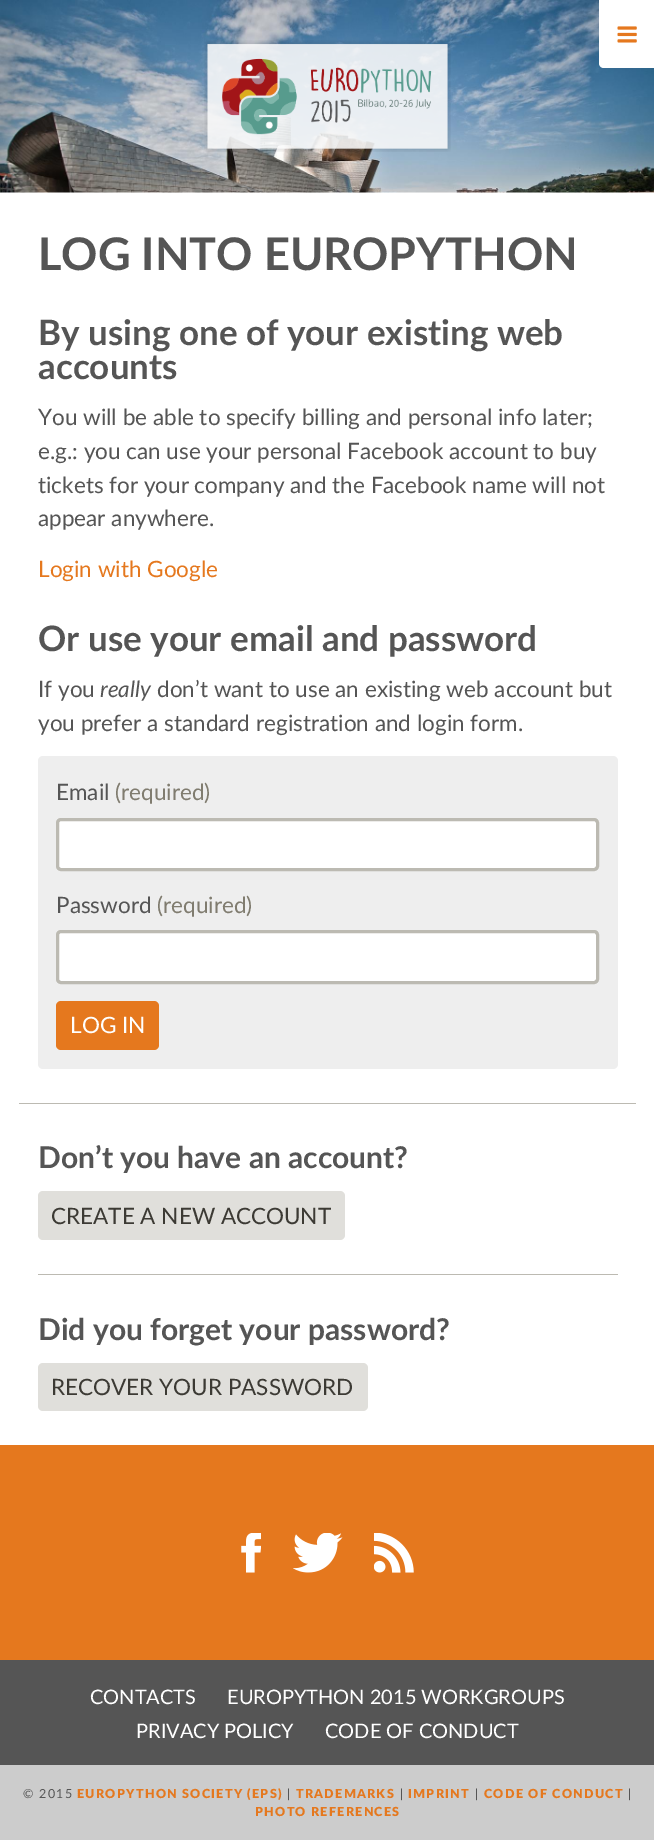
%!PS-Adobe-3.0
%%BoundingBox: 0 0 654 1844
%%LanguageLevel: 3
%%Pages: 1
%%EndComments
%%BeginProlog
/setink { 3 { 255 div 3 1 roll } repeat setrgbcolor } def
/usefont { [ exch dup neg 0 0 3 -1 roll 0 0 ] selectfont } def
/drawtext { setink usefont moveto show } def
/fillbox { setink rectfill } def
/rrect { 5 dict begin { /r /h /w /y /x } { exch def } forall
  x r add y moveto x w add y 2 copy h add r arct x w add y h add x 1 index r arct
  x y h add x y r arct x y 2 copy exch w add exch r arct closepath end } def
/drawimage { 5 dict begin { /h /w /y /x /name } { exch def } forall
  gsave x y translate w h scale
  w h 8 [w 0 0 h 0 0] name (r) file false 3 colorimage grestore end } def
%%EndProlog
%%BeginSetup
<< /PageSize [654 1844] >> setpagedevice
%%EndSetup
%%Page: 1 1
0 1844 translate 1 -1 scale
4 setmiterlimit
0 0 654 1844 255 255 255 fillbox
(assets/img2.rgb) 0 0 654 193 drawimage
599 0 moveto 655 0 lineto 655 68 lineto 604 68 lineto 601 68 599 66 599 63 curveto closepath fill
(assets/img1.rgb) 617 26 20 17 drawimage
(assets/img3.rgb) 204 40 247 112 drawimage
(LOG INTO EUROPYTHON) 38 270 /Lato-Bold 45 85 85 85 drawtext
(By using one of your existing web) 38 345 /Lato-Bold 35 85 85 85 drawtext
(accounts) 38 379 /Lato-Bold 35 85 85 85 drawtext
(You will be able to specify billing and personal info later;) 38 425 /Lato-Regular 22.5 85 85 85 drawtext
(e.g.: you can use your personal Facebook account to buy) 38 459 /Lato-Regular 22.5 85 85 85 drawtext
(tickets for your company and the Facebook name will not) 38 493 /Lato-Regular 22.5 85 85 85 drawtext
(appear anywhere.) 38 526 /Lato-Regular 22.5 85 85 85 drawtext
(Login with Google) 38 577 /Lato-Regular 22.5 229 120 30 drawtext
(Or use your email and password) 38 651 /Lato-Bold 35 85 85 85 drawtext
(If you) 38 697 /Lato-Regular 22.5 85 85 85 drawtext
(really) 100 697 /Lato-Italic 22.5 85 85 85 drawtext
(don’t want to use an existing web account but) 157 697 /Lato-Regular 22.5 85 85 85 drawtext
(you prefer a standard registration and login form.) 38 731 /Lato-Regular 22.5 85 85 85 drawtext
238 238 238 setink
38 756 580 313 5 rrect fill
(Email) 56 800 /Lato-Regular 22.5 85 85 85 drawtext
(\(required\)) 115 800 /Lato-Regular 22.5 128 124 111 drawtext
255 255 255 setink
57.5 819.5 540 50 3.5 rrect gsave fill grestore
188 186 178 setink
3 setlinewidth
stroke
(Password) 56 913 /Lato-Regular 22.5 85 85 85 drawtext
(\(required\)) 157 913 /Lato-Regular 22.5 128 124 111 drawtext
255 255 255 setink
57.5 931.5 540 51 3.5 rrect gsave fill grestore
188 186 178 setink
stroke
229 120 30 setink
56 1001 103 49 5 rrect fill
(LOG IN) 70 1033 /Lato-Regular 22.5 255 255 255 drawtext
19 1103 617 1 188 186 178 fillbox
(Don’t you have an account?) 38 1168 /Lato-Bold 30 85 85 85 drawtext
224 223 219 setink
38 1191 307 49 5 rrect fill
(CREATE A NEW ACCOUNT) 51 1224 /Lato-Regular 22.5 60 58 52 drawtext
38 1274 580 1 188 186 178 fillbox
(Did you forget your password?) 38 1340 /Lato-Bold 30 85 85 85 drawtext
224 223 219 setink
38 1363 330 48 5 rrect fill
(RECOVER YOUR PASSWORD) 51 1395 /Lato-Regular 22.5 60 58 52 drawtext
0 1445 654 215 229 120 30 fillbox
(assets/img4.rgb) 241 1533 20 40 drawimage
(assets/img5.rgb) 293 1533 50 40 drawimage
(assets/img6.rgb) 374 1533 40 40 drawimage
0 1660 654 105 85 85 85 fillbox
(CONTACTS) 90 1704 /Lato-Regular 20 255 255 255 drawtext
(EUROPYTHON 2015 WORKGROUPS) 227 1704 /Lato-Regular 20 255 255 255 drawtext
(PRIVACY POLICY) 136 1738 /Lato-Regular 20 255 255 255 drawtext
(CODE OF CONDUCT) 325 1738 /Lato-Regular 20 255 255 255 drawtext
0 1765 654 75 204 204 204 fillbox
/Lato-Regular 12.5 usefont
85 85 85 setink
23 1798 moveto 1.25 0 (© 2015) ashow
/Lato-ExtraBold 12.5 usefont
229 120 30 setink
77 1798 moveto 1.25 0 (EUROPYTHON SOCIETY \(EPS\)) ashow
/Lato-Regular 12.5 usefont
85 85 85 setink
287 1798 moveto 1.25 0 (|) ashow
/Lato-ExtraBold 12.5 usefont
229 120 30 setink
296 1798 moveto 1.25 0 (TRADEMARKS) ashow
/Lato-Regular 12.5 usefont
85 85 85 setink
400 1798 moveto 1.25 0 (|) ashow
/Lato-ExtraBold 12.5 usefont
229 120 30 setink
408 1798 moveto 1.25 0 (IMPRINT) ashow
/Lato-Regular 12.5 usefont
85 85 85 setink
475 1798 moveto 1.25 0 (|) ashow
/Lato-ExtraBold 12.5 usefont
229 120 30 setink
484 1798 moveto 1.25 0 (CODE OF CONDUCT) ashow
/Lato-Regular 12.5 usefont
85 85 85 setink
628 1798 moveto 1.25 0 (|) ashow
/Lato-ExtraBold 12.5 usefont
229 120 30 setink
255 1816 moveto 1.25 0 (PHOTO REFERENCES) ashow
showpage
%%EOF
